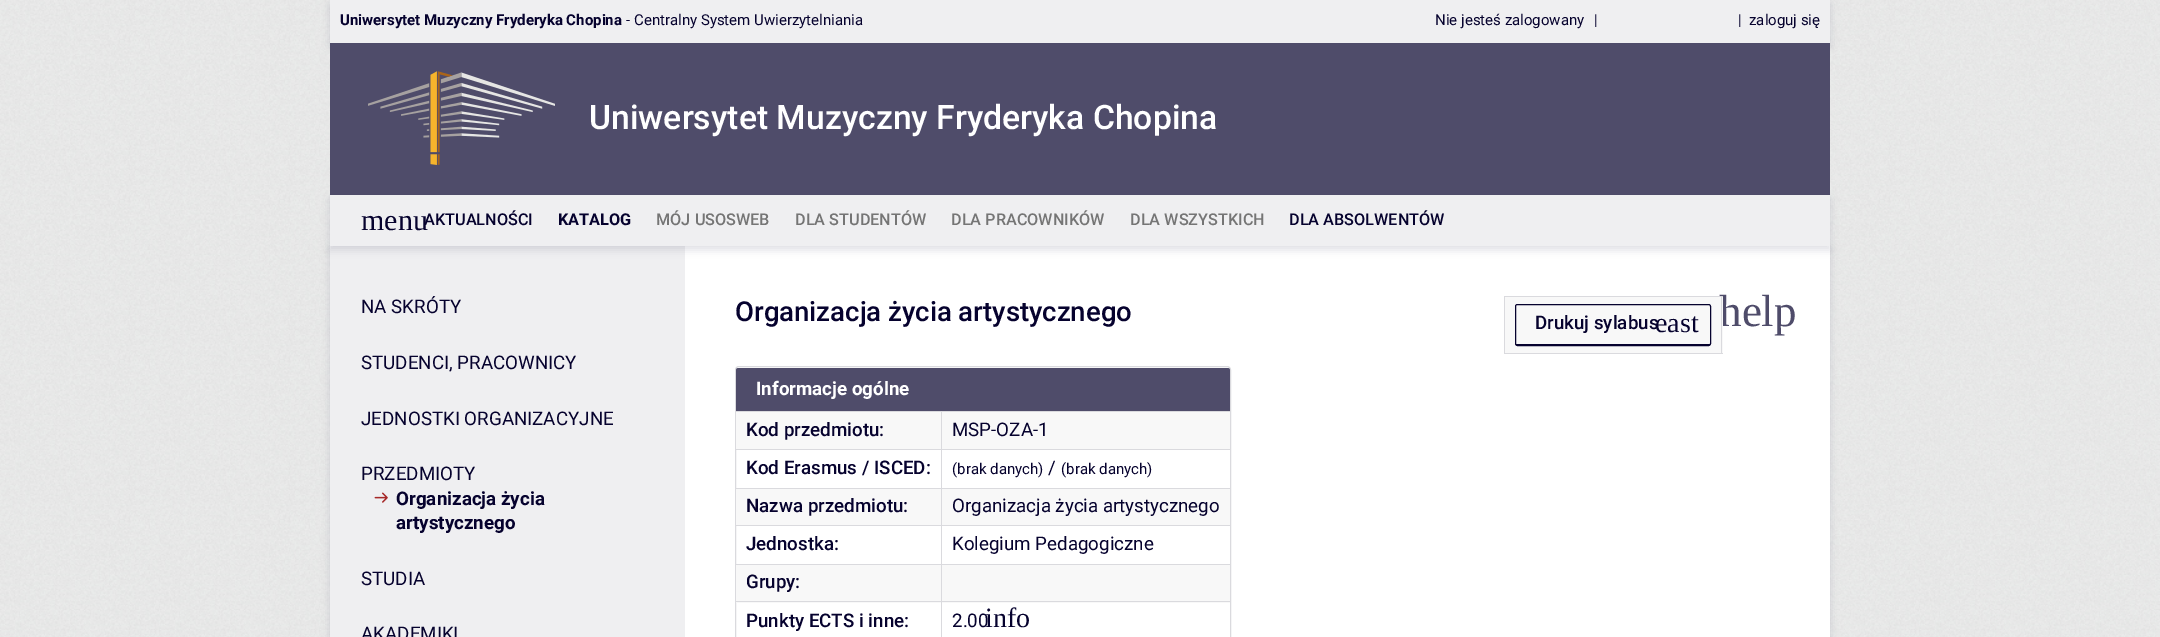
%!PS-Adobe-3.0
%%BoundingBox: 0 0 2160 637
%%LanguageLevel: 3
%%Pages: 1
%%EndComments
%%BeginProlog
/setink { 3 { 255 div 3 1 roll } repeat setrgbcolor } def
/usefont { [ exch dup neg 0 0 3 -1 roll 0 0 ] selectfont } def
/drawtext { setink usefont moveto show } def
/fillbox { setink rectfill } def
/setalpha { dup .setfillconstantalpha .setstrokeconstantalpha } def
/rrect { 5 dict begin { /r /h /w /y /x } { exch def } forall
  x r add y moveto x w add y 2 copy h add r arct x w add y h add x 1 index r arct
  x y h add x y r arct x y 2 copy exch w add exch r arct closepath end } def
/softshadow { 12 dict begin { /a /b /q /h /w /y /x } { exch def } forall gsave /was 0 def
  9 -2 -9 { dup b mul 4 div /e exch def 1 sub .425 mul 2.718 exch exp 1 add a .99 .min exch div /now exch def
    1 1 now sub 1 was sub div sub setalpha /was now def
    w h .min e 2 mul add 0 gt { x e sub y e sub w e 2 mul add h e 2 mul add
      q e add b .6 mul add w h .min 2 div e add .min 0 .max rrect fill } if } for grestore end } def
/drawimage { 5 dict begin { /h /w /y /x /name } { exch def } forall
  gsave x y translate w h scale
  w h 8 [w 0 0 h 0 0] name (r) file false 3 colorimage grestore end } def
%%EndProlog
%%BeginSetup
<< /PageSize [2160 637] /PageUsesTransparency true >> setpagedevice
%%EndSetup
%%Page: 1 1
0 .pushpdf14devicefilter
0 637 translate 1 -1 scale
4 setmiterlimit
0 0 2160 637 255 255 255 fillbox
(assets/img1.rgb) 0 0 2160 637 drawimage
6 6 51 setink
330 4 1500 42 0 4 0.12 softshadow
330 0 1500 43 239 239 241 fillbox
(Uniwersytet Muzyczny Fryderyka Chopina) 340 25 /Roboto-Bold 15 6 2 46 drawtext
(- Centralny System Uwierzytelniania) 626 25 /Roboto-Regular 15 6 2 46 drawtext
(Nie jesteś zalogowany) 1435 25 /Roboto-Regular 15 6 2 46 drawtext
(|) 1594 25 /Roboto-Regular 15 6 2 46 drawtext
(|) 1738 25 /Roboto-Regular 15 6 2 46 drawtext
(zaloguj się) 1749 25 /Roboto-Regular 15 6 2 46 drawtext
330 43 1500 152 79 76 106 fillbox
(assets/img2.rgb) 368 71 187 94 drawimage
(Uniwersytet Muzyczny Fryderyka Chopina) 589 129 /Roboto-Medium 33.75 255 255 255 drawtext
6 6 51 setink
330 250 1500 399 0 4 0.12 softshadow
685 246 1145 391 255 255 255 fillbox
330 246 355 391 239 239 241 fillbox
6 6 51 setink
330 199 1500 51 0 4 0.12 softshadow
330 195 1500 51 239 239 241 fillbox
(menu) 361 230 /LiberationSerif-Regular 30 6 2 46 drawtext
(AKTUALNOŚCI) 424 225 /Roboto-Medium 16.25 6 2 46 drawtext
(KATALOG) 558 225 /Roboto-Bold 16.25 6 2 46 drawtext
(MÓJ USOSWEB) 656 225 /Roboto-Medium 16.25 117 117 117 drawtext
(DLA STUDENTÓW) 795 225 /Roboto-Medium 16.25 117 117 117 drawtext
(DLA PRACOWNIKÓW) 951 225 /Roboto-Medium 16.25 117 117 117 drawtext
(DLA WSZYSTKICH) 1130 225 /Roboto-Medium 16.25 117 117 117 drawtext
(DLA ABSOLWENTÓW) 1289 225 /Roboto-Medium 16.25 6 2 46 drawtext
(NA SKRÓTY) 361 313 /Roboto-Regular 18.75 6 2 46 drawtext
(STUDENCI, PRACOWNICY) 361 369 /Roboto-Regular 18.75 6 2 46 drawtext
(JEDNOSTKI ORGANIZACYJNE) 361 425 /Roboto-Regular 18.75 6 2 46 drawtext
(PRZEDMIOTY) 361 480 /Roboto-Regular 18.75 6 2 46 drawtext
(assets/img3.rgb) 374 492 14 11 drawimage
(Organizacja życia) 396 505 /Roboto-Bold 18.75 6 2 46 drawtext
(artystycznego) 396 529 /Roboto-Bold 18.75 6 2 46 drawtext
(STUDIA) 361 585 /Roboto-Regular 18.75 6 2 46 drawtext
(AKADEMIKI) 361 640 /Roboto-Regular 18.75 6 2 46 drawtext
(Organizacja życia artystycznego) 735 321 /Roboto-Medium 27.5 6 2 46 drawtext
(help) 1719 326 /LiberationSerif-Regular 45 79 76 106 drawtext
1505 297 218 56 248 248 248 fillbox
1504 296 219 1 218 218 222 fillbox
1721 296 1 58 218 218 222 fillbox
1504 353 219 1 218 218 222 fillbox
1504 296 1 58 218 218 222 fillbox
6 2 46 setink
1515.5 304.5 195 41 2 rrect stroke
1516 344 194 1 6 2 46 fillbox
(Drukuj sylabus) 1535 329 /Roboto-Medium 18.75 6 2 46 drawtext
(east) 1655 332 /LiberationSerif-Regular 28 6 2 46 drawtext
218 218 222 setink
739 366.5 moveto 1227 366.5 lineto 1229 366.5 1230.5 368 1230.5 370 curveto 1230.5 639.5 lineto 1230.5 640.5 1229.5 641.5 1228.5 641.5 curveto 737.5 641.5 lineto 736.5 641.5 735.5 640.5 735.5 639.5 curveto 735.5 370 lineto 735.5 368 737 366.5 739 366.5 curveto closepath stroke
79 76 106 setink
738.5 368 moveto 1227.5 368 lineto 1229 368 1230 369 1230 370.5 curveto 1230 413 lineto 736 413 lineto 736 370.5 lineto 736 369 737 368 738.5 368 curveto closepath fill
(Informacje ogólne) 756 395 /Roboto-Bold 18.75 255 255 255 drawtext
736 412 205 37 248 248 248 fillbox
941 411 290 1 218 218 222 fillbox
941 449 290 1 218 218 222 fillbox
941 488 290 1 218 218 222 fillbox
941 525 290 1 218 218 222 fillbox
941 564 290 1 218 218 222 fillbox
736 565 205 38 248 248 248 fillbox
942 565 288 38 248 248 248 fillbox
941 601 290 1 218 218 222 fillbox
941 601 1 36 218 218 222 fillbox
735 601 208 1 218 218 222 fillbox
941 564 1 39 218 218 222 fillbox
735 564 208 1 218 218 222 fillbox
941 525 1 40 218 218 222 fillbox
735 525 208 1 218 218 222 fillbox
941 488 1 38 218 218 222 fillbox
735 488 208 1 218 218 222 fillbox
941 449 1 40 218 218 222 fillbox
735 449 208 1 218 218 222 fillbox
941 411 1 39 218 218 222 fillbox
735 411 208 1 218 218 222 fillbox
(Kod przedmiotu:) 746 436 /Roboto-Medium 18.75 6 2 46 drawtext
942 412 288 37 248 248 248 fillbox
(MSP-OZA-1) 952 436 /Roboto-Regular 18.75 6 2 46 drawtext
(Kod Erasmus / ISCED:) 746 474 /Roboto-Medium 18.75 6 2 46 drawtext
(\(brak danych\)) 952 474 /Roboto-Regular 15 6 2 46 drawtext
(/) 1048 474 /Roboto-Regular 18.75 6 2 46 drawtext
(\(brak danych\)) 1061 474 /Roboto-Regular 15 6 2 46 drawtext
736 489 205 36 248 248 248 fillbox
(Nazwa przedmiotu:) 746 512 /Roboto-Medium 18.75 6 2 46 drawtext
942 489 288 36 248 248 248 fillbox
(Organizacja życia artystycznego) 952 512 /Roboto-Regular 18.75 6 2 46 drawtext
(Jednostka:) 746 550 /Roboto-Medium 18.75 6 2 46 drawtext
(Kolegium Pedagogiczne) 952 550 /Roboto-Regular 18.75 6 2 46 drawtext
(Grupy:) 746 588 /Roboto-Medium 18.75 6 2 46 drawtext
(Punkty ECTS i inne:) 746 627 /Roboto-Medium 18.75 6 2 46 drawtext
(2.00) 952 627 /Roboto-Regular 18.75 6 2 46 drawtext
(info) 985 627 /LiberationSerif-Regular 28 6 2 46 drawtext
.poppdf14devicefilter showpage
%%EOF
